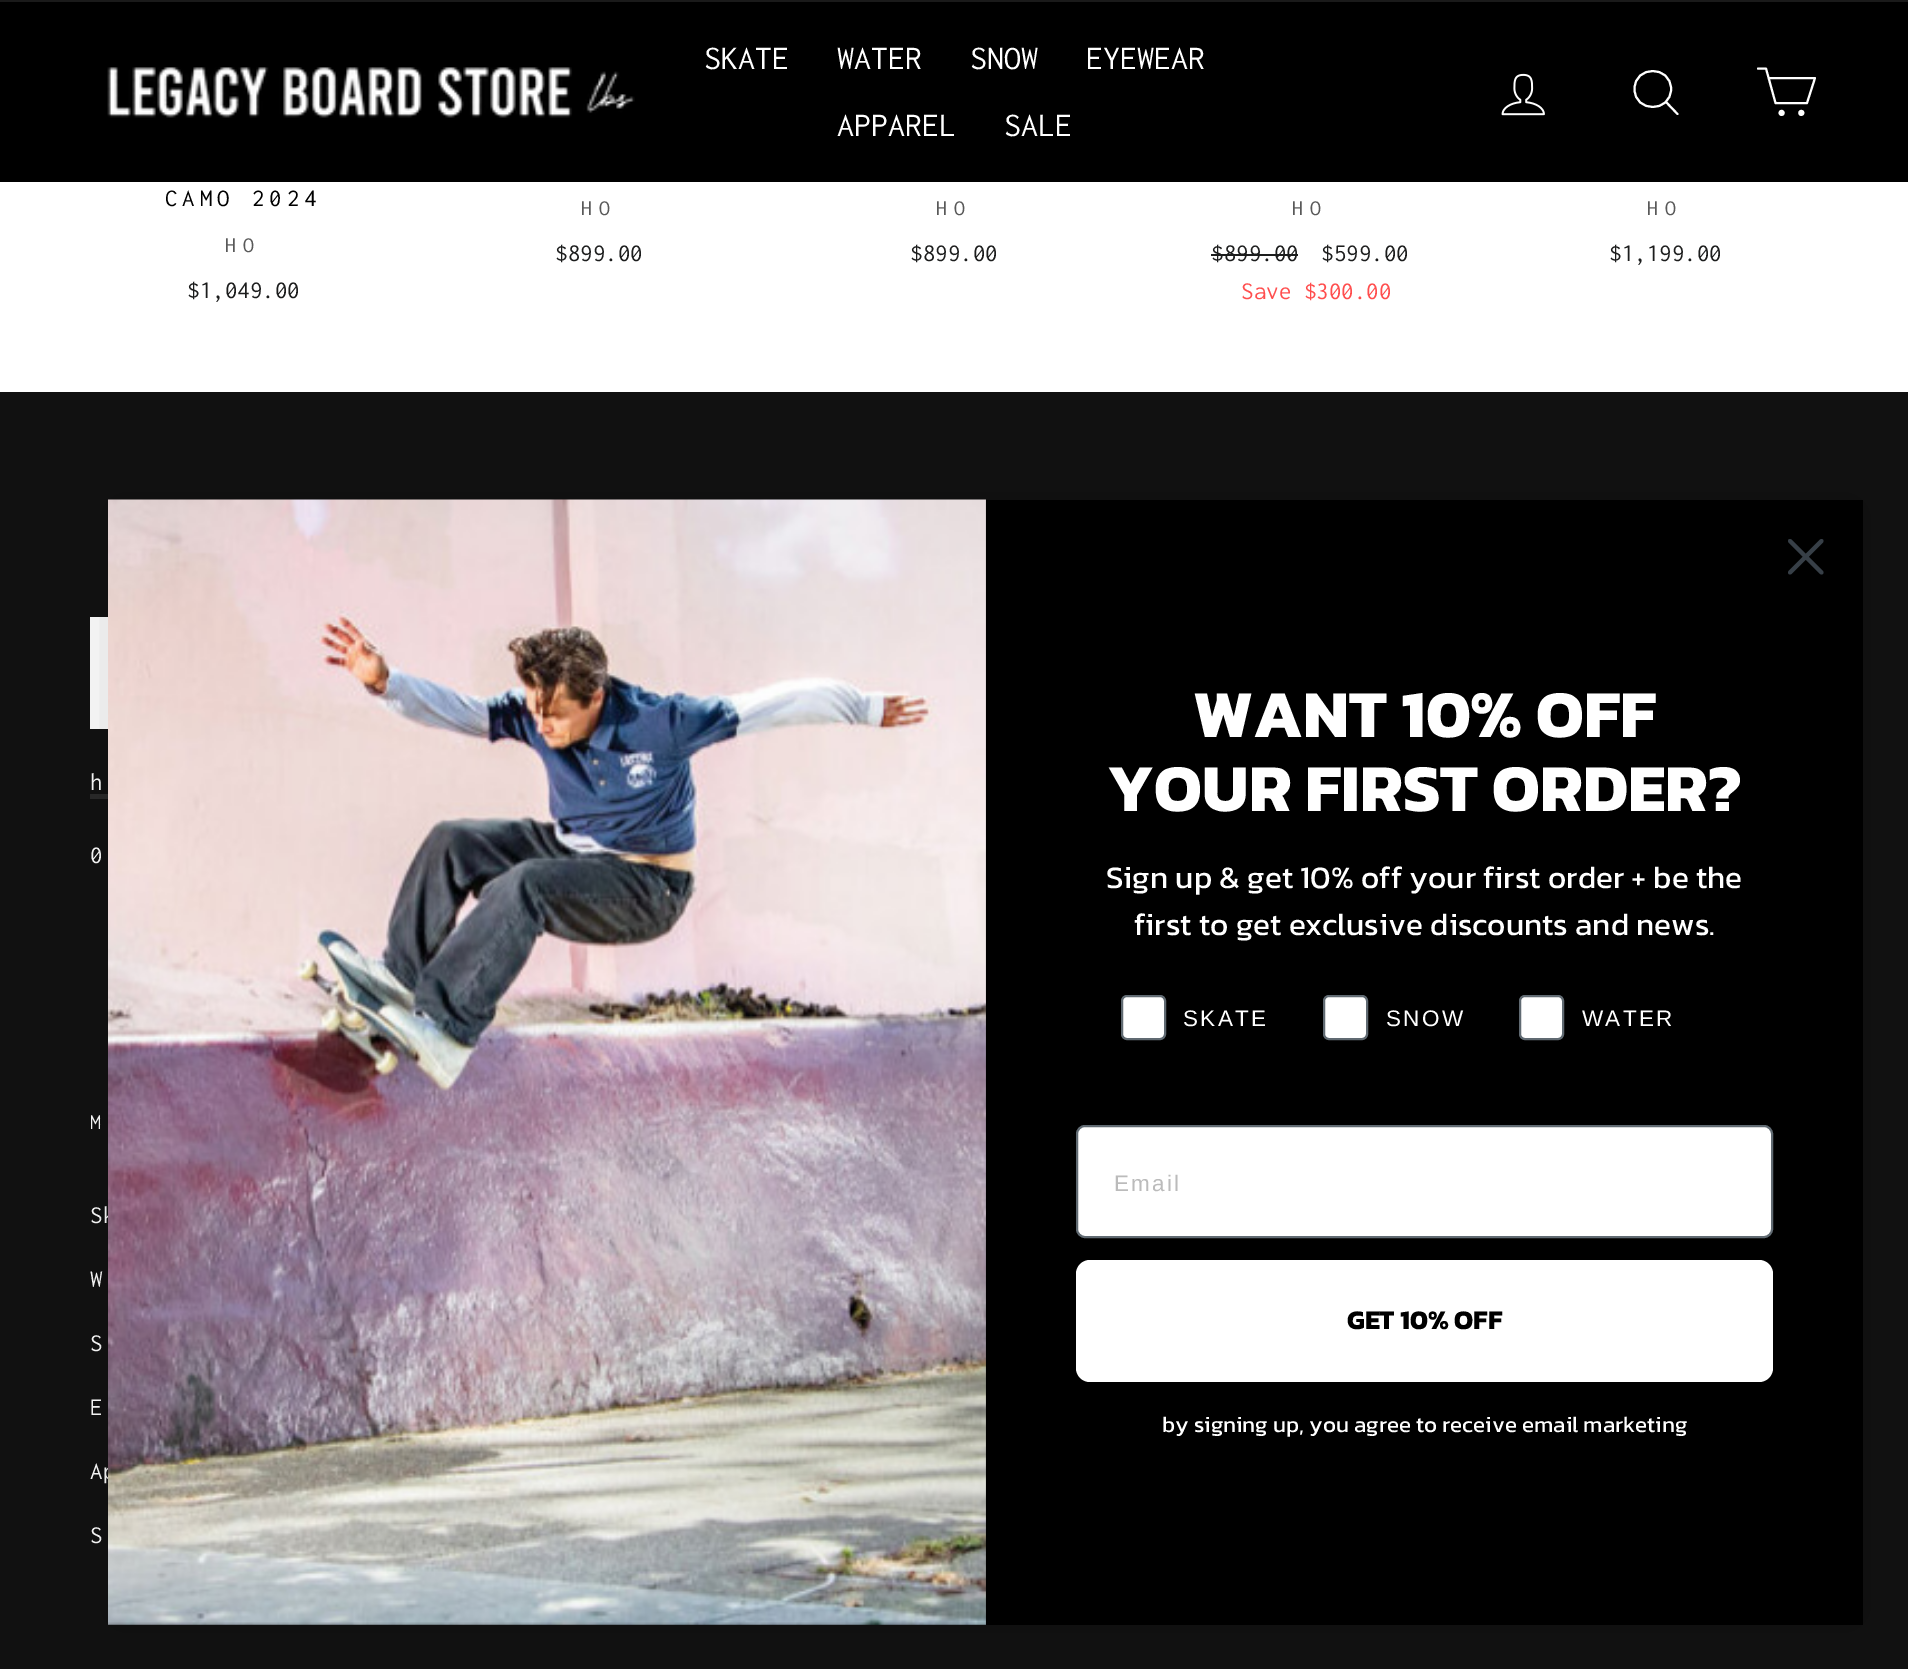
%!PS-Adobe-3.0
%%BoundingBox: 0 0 1908 1669
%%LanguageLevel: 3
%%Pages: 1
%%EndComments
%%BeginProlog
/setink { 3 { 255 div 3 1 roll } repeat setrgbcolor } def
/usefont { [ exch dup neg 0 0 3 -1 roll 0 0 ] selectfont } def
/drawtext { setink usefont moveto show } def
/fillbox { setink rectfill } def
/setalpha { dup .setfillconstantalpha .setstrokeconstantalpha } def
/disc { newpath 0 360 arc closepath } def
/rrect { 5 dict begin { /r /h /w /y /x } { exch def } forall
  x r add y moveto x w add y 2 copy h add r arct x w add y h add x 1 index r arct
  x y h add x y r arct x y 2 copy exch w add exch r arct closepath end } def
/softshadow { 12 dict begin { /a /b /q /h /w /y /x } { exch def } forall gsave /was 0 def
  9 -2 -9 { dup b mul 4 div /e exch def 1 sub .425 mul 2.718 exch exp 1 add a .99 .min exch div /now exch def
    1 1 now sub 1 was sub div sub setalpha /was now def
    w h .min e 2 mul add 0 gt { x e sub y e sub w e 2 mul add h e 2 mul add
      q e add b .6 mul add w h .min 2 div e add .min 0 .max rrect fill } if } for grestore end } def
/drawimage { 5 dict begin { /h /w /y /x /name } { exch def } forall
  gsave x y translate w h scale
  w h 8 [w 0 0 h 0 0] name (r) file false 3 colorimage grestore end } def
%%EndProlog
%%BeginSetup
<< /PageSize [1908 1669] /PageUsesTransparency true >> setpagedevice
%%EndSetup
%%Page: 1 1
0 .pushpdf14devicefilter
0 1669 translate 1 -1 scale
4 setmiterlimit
0 0 1908 1669 255 255 255 fillbox
0 2 1908 180 0 0 0 fillbox
0 0 1908 2 26 26 26 fillbox
(assets/img1.rgb) 107 67 528 51 drawimage
(SKATE) 704 69 /Inconsolata-Regular 34 255 255 255 drawtext
(WATER) 837 69 /Inconsolata-Regular 34 255 255 255 drawtext
(SNOW) 970 69 /Inconsolata-Regular 34 255 255 255 drawtext
(EYEWEAR) 1086 69 /Inconsolata-Regular 34 255 255 255 drawtext
(APPAREL) 837 136 /Inconsolata-Regular 34 255 255 255 drawtext
(SALE) 1004 136 /Inconsolata-Regular 34 255 255 255 drawtext
(assets/img2.rgb) 1501 73 44 43 drawimage
2 setlinewidth
1 setlinecap
1 setlinejoin
1671 89 moveto 1671 113 1634.5 113 1634.5 89 curveto 1634.5 65 1671 65 1671 89 curveto closepath 1677.5 114 moveto 1666 102 lineto stroke
1769 78 moveto 1815 78 lineto 1807 103 lineto 1775.5 103 lineto 1766 68.5 lineto 1758 68.5 lineto stroke
1781.6 112.9 2 disc gsave fill grestore
0 setlinecap
0 setlinejoin
stroke
1801.3 112.9 2 disc gsave fill grestore
stroke
/Inconsolata-Regular 24.75 usefont
0 0 0 setink
165 206 moveto 5 0 (CAMO 2024) ashow
/Inconsolata-Regular 22 usefont
89 89 89 setink
225 252 moveto 7 0 (HO) ashow
($1,049.00) 187 298 /Inconsolata-Regular 25 28 29 29 drawtext
/Inconsolata-Regular 22 usefont
89 89 89 setink
581 215 moveto 7 0 (HO) ashow
($899.00) 555 261 /Inconsolata-Regular 25 28 29 29 drawtext
/Inconsolata-Regular 22 usefont
89 89 89 setink
936 215 moveto 7 0 (HO) ashow
($899.00) 910 261 /Inconsolata-Regular 25 28 29 29 drawtext
/Inconsolata-Regular 22 usefont
89 89 89 setink
1292 215 moveto 7 0 (HO) ashow
($899.00) 1211 261 /Inconsolata-Regular 25 28 29 29 drawtext
1211 254 87 2 28 29 29 fillbox
($599.00) 1321 261 /Inconsolata-Regular 25 28 29 29 drawtext
(Save $300.00) 1241 299 /Inconsolata-Regular 25 255 78 78 drawtext
/Inconsolata-Regular 22 usefont
89 89 89 setink
1647 215 moveto 7 0 (HO) ashow
($1,199.00) 1609 261 /Inconsolata-Regular 25 28 29 29 drawtext
0 392 1908 1277 17 17 17 fillbox
90 617 18 112 255 255 255 fillbox
(h) 90 790 /Inconsolata-Regular 25 255 255 255 drawtext
90 794 18 5 41 41 41 fillbox
(0) 90 863 /Inconsolata-Regular 25 255 255 255 drawtext
/Inconsolata-Regular 22 usefont
90 1129 moveto 7 0 (M) ashow
(Sk) 90 1223 /Inconsolata-Regular 25 255 255 255 drawtext
(W) 90 1287 /Inconsolata-Regular 25 255 255 255 drawtext
(S) 90 1351 /Inconsolata-Regular 25 255 255 255 drawtext
(E) 90 1415 /Inconsolata-Regular 25 255 255 255 drawtext
(Ap) 90 1479 /Inconsolata-Regular 25 255 255 255 drawtext
(S) 90 1543 /Inconsolata-Regular 25 255 255 255 drawtext
0 0 0 setink
108 500 1755 1125 0 34 0.15 softshadow
108 500 1755 1125 0 0 0 fillbox
55 63 71 setink
3.9 setlinewidth
1 setlinecap
1 setlinejoin
1790 541 moveto 1821.5 572.5 lineto 1790 572.5 moveto 1821.5 541 lineto closepath stroke
(assets/img3.rgb) 108 499 878 1126 drawimage
(WANT 10% OFF) 1193 737 /Kanit-Bold 67.5 255 255 255 drawtext
(YOUR FIRST ORDER?) 1107 811 /Kanit-Bold 67.5 255 255 255 drawtext
(Sign up & get 10% off your first order + be the) 1106 888 /Kanit-Regular 31.5 255 255 255 drawtext
(first to get exclusive discounts and news.) 1134 935 /Kanit-Regular 31.5 255 255 255 drawtext
1122 996 43 43 5 rrect gsave fill grestore
96 106 114 setink
2 setlinewidth
0 setlinecap
0 setlinejoin
stroke
/LiberationSans-Regular 22.5 usefont
255 255 255 setink
1183 1026 moveto 2.25 0 (SKATE) ashow
1324 996 43 43 5 rrect gsave fill grestore
96 106 114 setink
stroke
255 255 255 setink
1386 1026 moveto 2.25 0 (SNOW) ashow
1520 996 43 43 5 rrect gsave fill grestore
96 106 114 setink
stroke
255 255 255 setink
1582 1026 moveto 2.25 0 (WATER) ashow
1077 1126 695 111 8 rrect gsave fill grestore
96 106 114 setink
stroke
187 187 187 setink
1114 1191 moveto 2.25 0 (Email) ashow
255 255 255 setink
1076 1260 697 122 14 rrect fill
(GET 10% OFF) 1347 1329 /Kanit-Bold 27 0 0 0 drawtext
(by signing up, you agree to receive email marketing) 1162 1432 /Kanit-Regular 22.5 255 255 255 drawtext
.poppdf14devicefilter showpage
%%EOF
